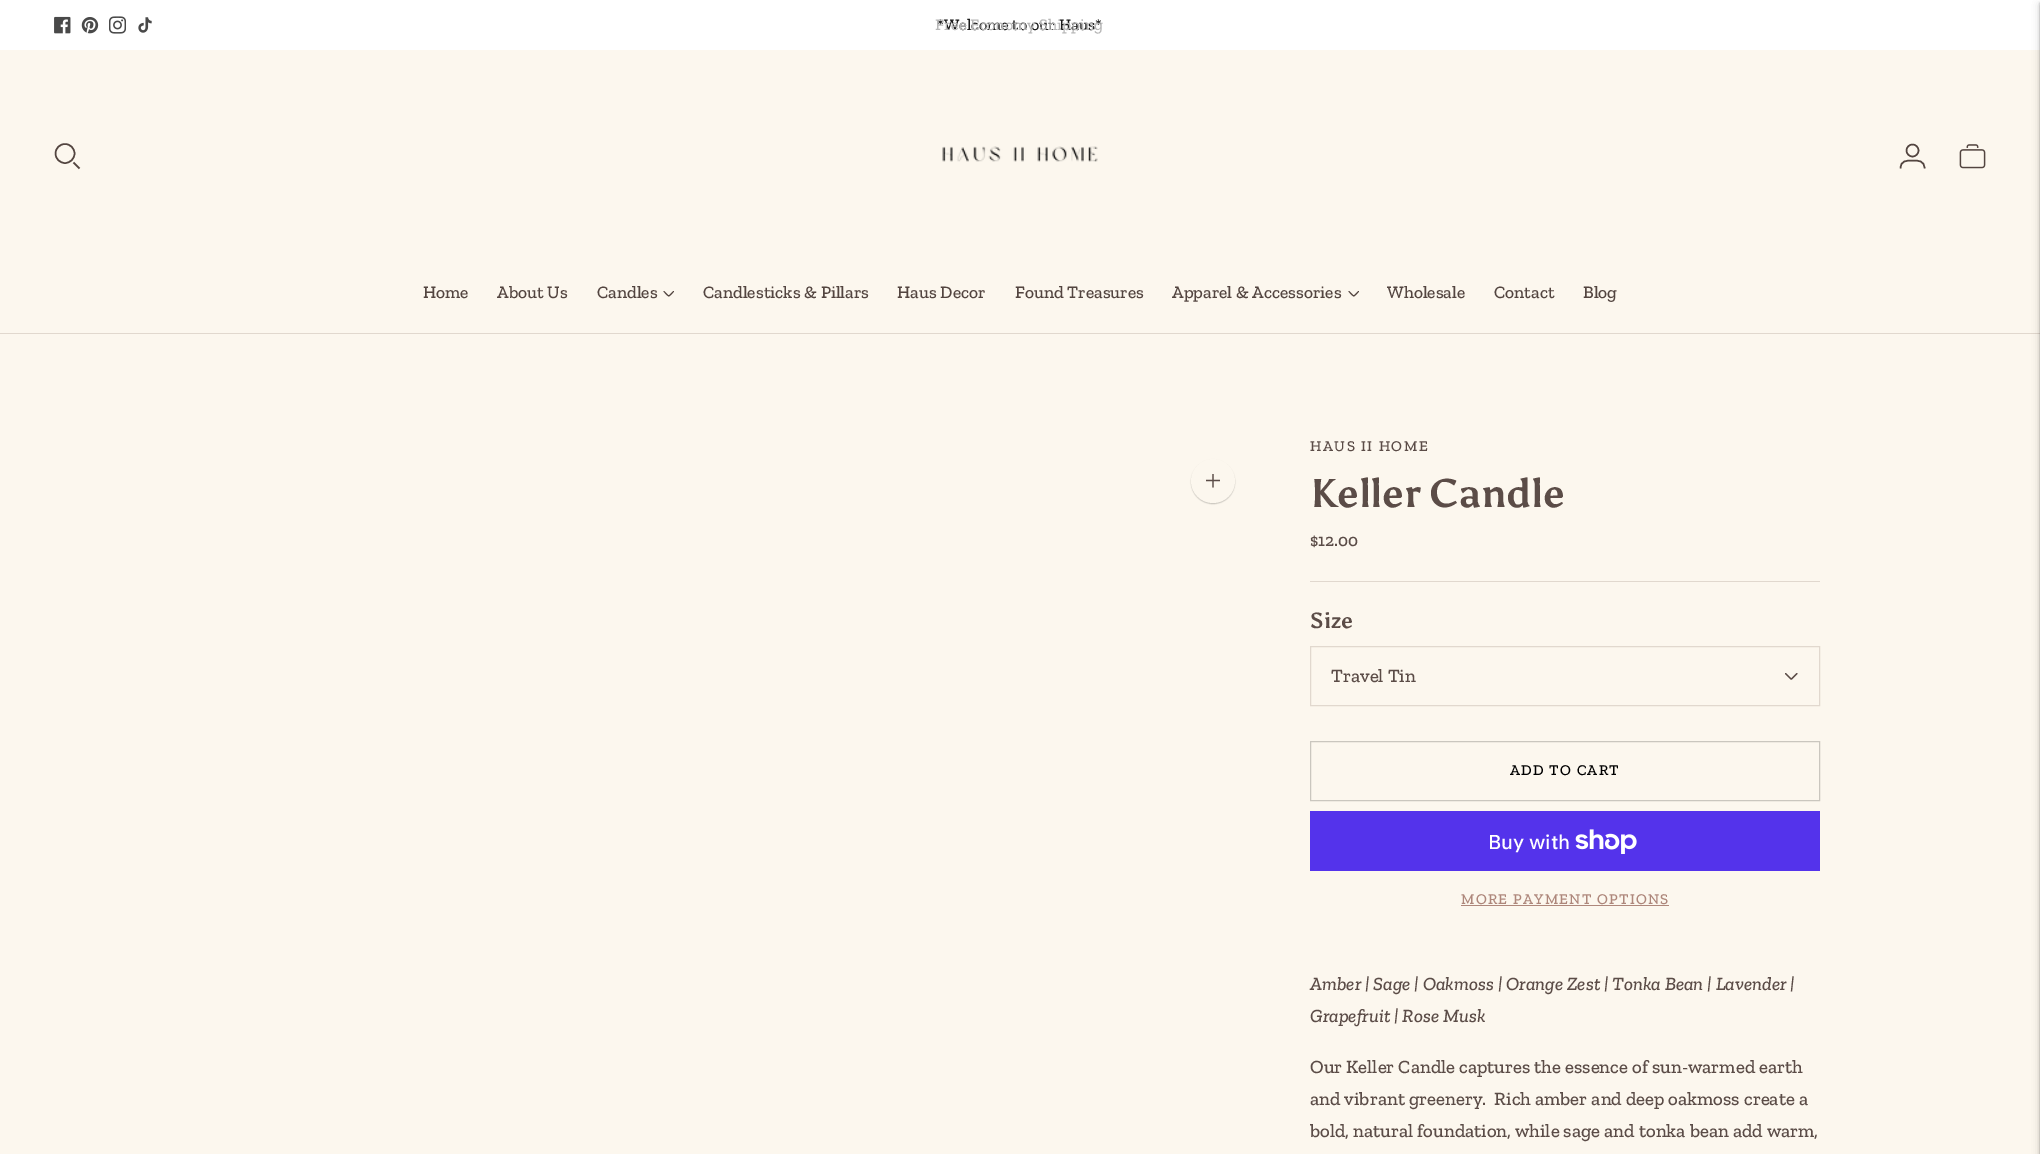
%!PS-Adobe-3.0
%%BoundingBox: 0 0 2040 1154
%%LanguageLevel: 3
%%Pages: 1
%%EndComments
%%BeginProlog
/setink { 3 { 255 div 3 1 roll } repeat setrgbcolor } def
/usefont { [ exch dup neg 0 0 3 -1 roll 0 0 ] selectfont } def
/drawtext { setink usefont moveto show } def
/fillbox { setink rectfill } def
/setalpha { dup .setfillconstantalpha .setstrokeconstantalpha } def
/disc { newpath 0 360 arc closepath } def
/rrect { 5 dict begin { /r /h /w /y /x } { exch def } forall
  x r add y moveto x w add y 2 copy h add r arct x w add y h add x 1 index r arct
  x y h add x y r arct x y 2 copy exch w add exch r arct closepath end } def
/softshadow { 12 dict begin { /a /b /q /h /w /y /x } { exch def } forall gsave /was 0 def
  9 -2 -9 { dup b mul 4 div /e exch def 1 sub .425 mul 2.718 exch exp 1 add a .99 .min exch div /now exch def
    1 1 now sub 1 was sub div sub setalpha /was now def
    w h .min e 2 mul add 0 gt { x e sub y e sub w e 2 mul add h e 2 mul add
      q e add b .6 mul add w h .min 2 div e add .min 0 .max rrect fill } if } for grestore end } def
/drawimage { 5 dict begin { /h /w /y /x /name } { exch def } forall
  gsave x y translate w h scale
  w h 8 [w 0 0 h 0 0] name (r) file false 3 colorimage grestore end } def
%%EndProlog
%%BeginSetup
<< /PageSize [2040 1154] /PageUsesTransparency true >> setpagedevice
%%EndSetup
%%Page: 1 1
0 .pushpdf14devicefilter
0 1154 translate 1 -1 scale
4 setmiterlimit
0 0 2040 1154 252 247 238 fillbox
0 0 2040 50 255 255 255 fillbox
(assets/img1.rgb) 54 16 17 18 drawimage
(assets/img2.rgb) 81 17 18 17 drawimage
(assets/img3.rgb) 109 16 17 18 drawimage
(assets/img4.rgb) 138 17 14 16 drawimage
(*Welcome to our Haus*) 937 30 /ZillaSlab-Medium 16.25 27 27 27 drawtext
(Free Economy Shipping) 935 30 /ZillaSlab-Medium 16.25 183 183 183 drawtext
0 333 2040 1 225 216 206 fillbox
83 69 64 setink
1.5 setlinewidth
65 153.5 9.5 disc stroke
73.5 162.5 moveto 79.5 168.5 lineto stroke
(assets/img5.rgb) 942 146 156 16 drawimage
1912.5 150.5 6 disc stroke
1900.5 168.5 moveto 1900.5 160.5 1906.5 160.5 1912.5 160.5 curveto 1918.5 160.5 1924.5 160.5 1924.5 168.5 curveto stroke
(assets/img6.rgb) 1959 144 27 25 drawimage
(Home) 423 298 /ZillaSlab-Medium 17.5 83 69 64 drawtext
(About Us) 497 298 /ZillaSlab-Medium 17.5 83 69 64 drawtext
(Candles) 597 298 /ZillaSlab-Medium 17.5 83 69 64 drawtext
1 setlinewidth
1 setlinecap
1 setlinejoin
664 291.5 moveto 670 297.5 667.5 297.5 673.5 291.5 curveto stroke
(Candlesticks & Pillars) 703 298 /ZillaSlab-Medium 17.5 83 69 64 drawtext
(Haus Decor) 897 298 /ZillaSlab-Medium 17.5 83 69 64 drawtext
(Found Treasures) 1015 298 /ZillaSlab-Medium 17.5 83 69 64 drawtext
(Apparel & Accessories) 1172 298 /ZillaSlab-Medium 17.5 83 69 64 drawtext
1349 291.5 moveto 1355 297.5 1352.5 297.5 1358.5 291.5 curveto stroke
(Wholesale) 1387 298 /ZillaSlab-Medium 17.5 83 69 64 drawtext
(Contact) 1494 298 /ZillaSlab-Medium 17.5 83 69 64 drawtext
(Blog) 1583 298 /ZillaSlab-Medium 17.5 83 69 64 drawtext
0 0 0 setink
2040 5 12 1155 0 4 0.1 softshadow
2040 3 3 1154 0 1 0.15 softshadow
1191 460 44 44 22 0.5 0.2 softshadow
252 247 238 setink
1213 481 22 disc fill
91 76 71 setink
1.2 setlinewidth
0 setlinecap
0 setlinejoin
1213 474 moveto 1213 487.5 lineto 1206 480.5 moveto 1220 480.5 lineto stroke
/ZillaSlab-Medium 15 usefont
1310 451 moveto 1.5 0 (HAUS II HOME) ashow
(Keller Candle) 1310 507 /Asul-Bold 40 91 76 71 drawtext
($12.00) 1310 546 /ZillaSlab-Medium 17.5 91 76 71 drawtext
1310 581 510 1 225 216 206 fillbox
(Size) 1310 628 /Asul-Bold 22 91 76 71 drawtext
225 216 206 setink
1 setlinewidth
1310.5 646.5 509 59 rectstroke
(Travel Tin) 1331 682 /ZillaSlab-Medium 18.75 91 76 71 drawtext
1.2 setlinewidth
1 setlinecap
1 setlinejoin
1785.5 673.5 moveto 1790 678 lineto 1791.5 679.5 1791 679.5 1792.5 678 curveto 1797 673.5 lineto stroke
202 198 190 setink
1 setlinewidth
0 setlinecap
0 setlinejoin
1310.5 741.5 509 59 rectstroke
/ZillaSlab-Medium 15 usefont
0 0 0 setink
1510 775 moveto 1.25 0 (ADD TO CART) ashow
1310 811 510 60 84 51 235 fillbox
(Buy with) 1488 849 /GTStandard-Medium 20 255 255 255 drawtext
(assets/img7.rgb) 1575 829 62 25 drawimage
/ZillaSlab-Medium 15 usefont
174 135 123 setink
1461 904 moveto 1.25 0 (MORE PAYMENT OPTIONS) ashow
1461 905 208 1 174 135 123 fillbox
(Amber | Sage | Oakmoss | Orange Zest | Tonka Bean | Lavender |) 1310 990 /ZillaSlab-MediumItalic 18.75 91 76 71 drawtext
(Grapefruit | Rose Musk) 1310 1022 /ZillaSlab-MediumItalic 18.75 91 76 71 drawtext
(Our Keller Candle captures the essence of sun-warmed earth) 1310 1073 /ZillaSlab-Medium 18.75 91 76 71 drawtext
(and vibrant greenery.  Rich amber and deep oakmoss create a) 1310 1105 /ZillaSlab-Medium 18.75 91 76 71 drawtext
(bold, natural foundation, while sage and tonka bean add warm,) 1310 1137 /ZillaSlab-Medium 18.75 91 76 71 drawtext
0 0 0 setink
2040 5 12 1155 0 4 0.1 softshadow
2040 3 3 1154 0 1 0.15 softshadow
.poppdf14devicefilter showpage
%%EOF
